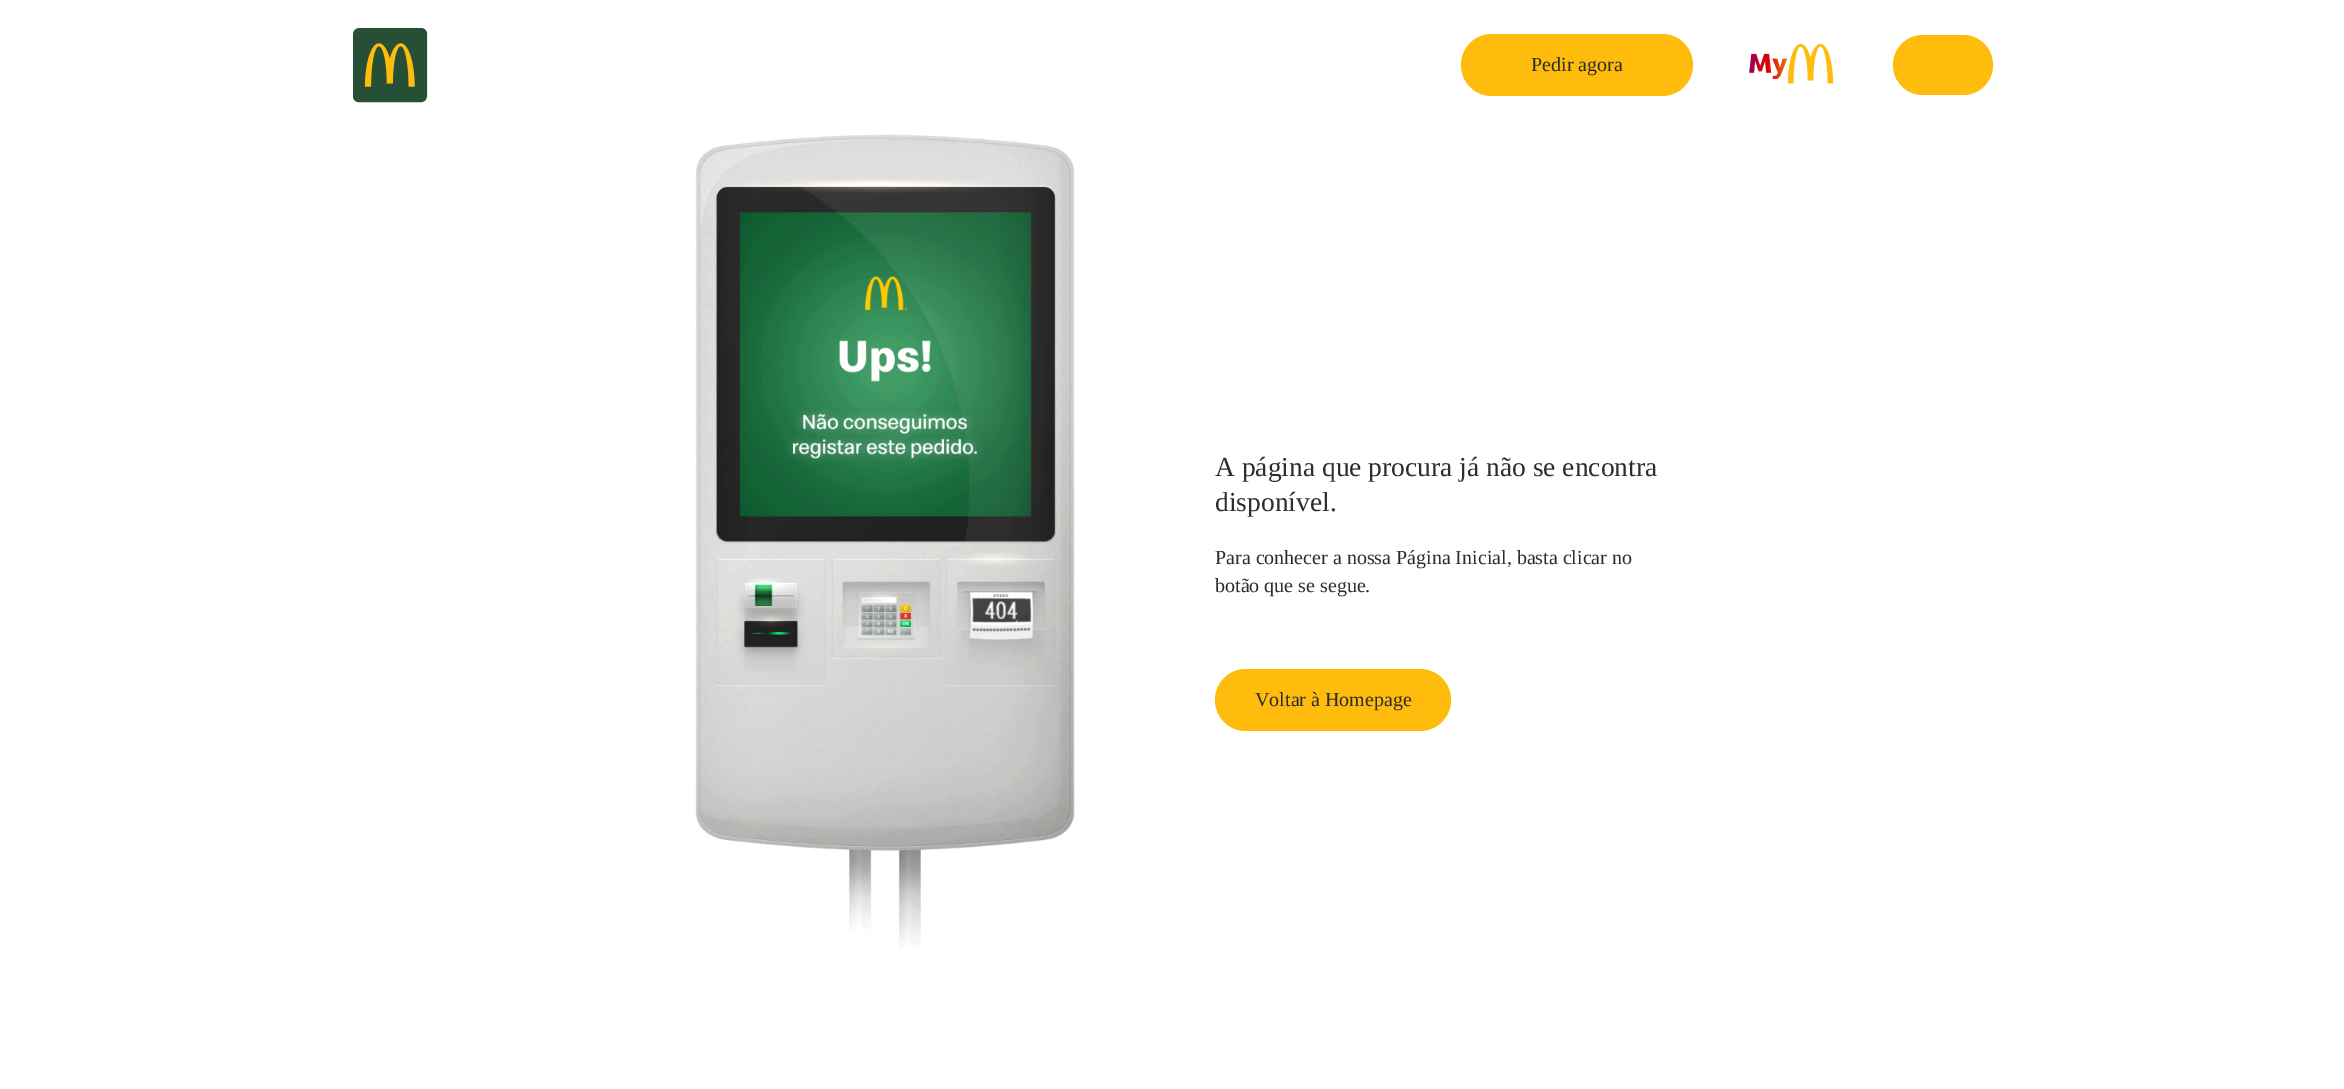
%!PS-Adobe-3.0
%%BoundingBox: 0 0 2344 1089
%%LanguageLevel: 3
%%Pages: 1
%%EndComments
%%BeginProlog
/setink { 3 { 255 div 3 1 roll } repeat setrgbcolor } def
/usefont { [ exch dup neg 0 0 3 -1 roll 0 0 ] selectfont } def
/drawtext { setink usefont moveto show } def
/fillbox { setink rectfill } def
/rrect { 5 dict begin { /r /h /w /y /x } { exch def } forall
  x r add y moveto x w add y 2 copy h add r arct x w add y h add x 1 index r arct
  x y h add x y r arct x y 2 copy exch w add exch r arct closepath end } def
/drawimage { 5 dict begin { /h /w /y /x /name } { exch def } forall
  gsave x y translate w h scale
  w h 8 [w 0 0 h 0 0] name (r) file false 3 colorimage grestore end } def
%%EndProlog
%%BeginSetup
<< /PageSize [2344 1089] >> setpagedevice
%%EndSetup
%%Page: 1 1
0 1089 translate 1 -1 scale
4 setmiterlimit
0 0 2344 1089 255 255 255 fillbox
(assets/img1.rgb) 353 28 75 75 drawimage
255 188 13 setink
1461 34 232 62 31 rrect fill
(Pedir agora) 1531 71 /LiberationSerif-Regular 20 45 45 45 drawtext
(assets/img2.rgb) 1749 43 85 41 drawimage
255 188 13 setink
1893 35 100 60 30 rrect fill
(assets/img3.rgb) 695 134 380 817 drawimage
(A página que procura já não se encontra) 1215 476 /LiberationSerif-Regular 27.5 45 45 45 drawtext
(disponível.) 1215 511 /LiberationSerif-Regular 27.5 45 45 45 drawtext
(Para conhecer a nossa Página Inicial, basta clicar no) 1215 564 /LiberationSerif-Regular 20 45 45 45 drawtext
(botão que se segue.) 1215 592 /LiberationSerif-Regular 20 45 45 45 drawtext
255 188 13 setink
1215 669 236 62 31 rrect fill
(Voltar à Homepage) 1255 706 /LiberationSerif-Regular 20 45 45 45 drawtext
showpage
%%EOF
